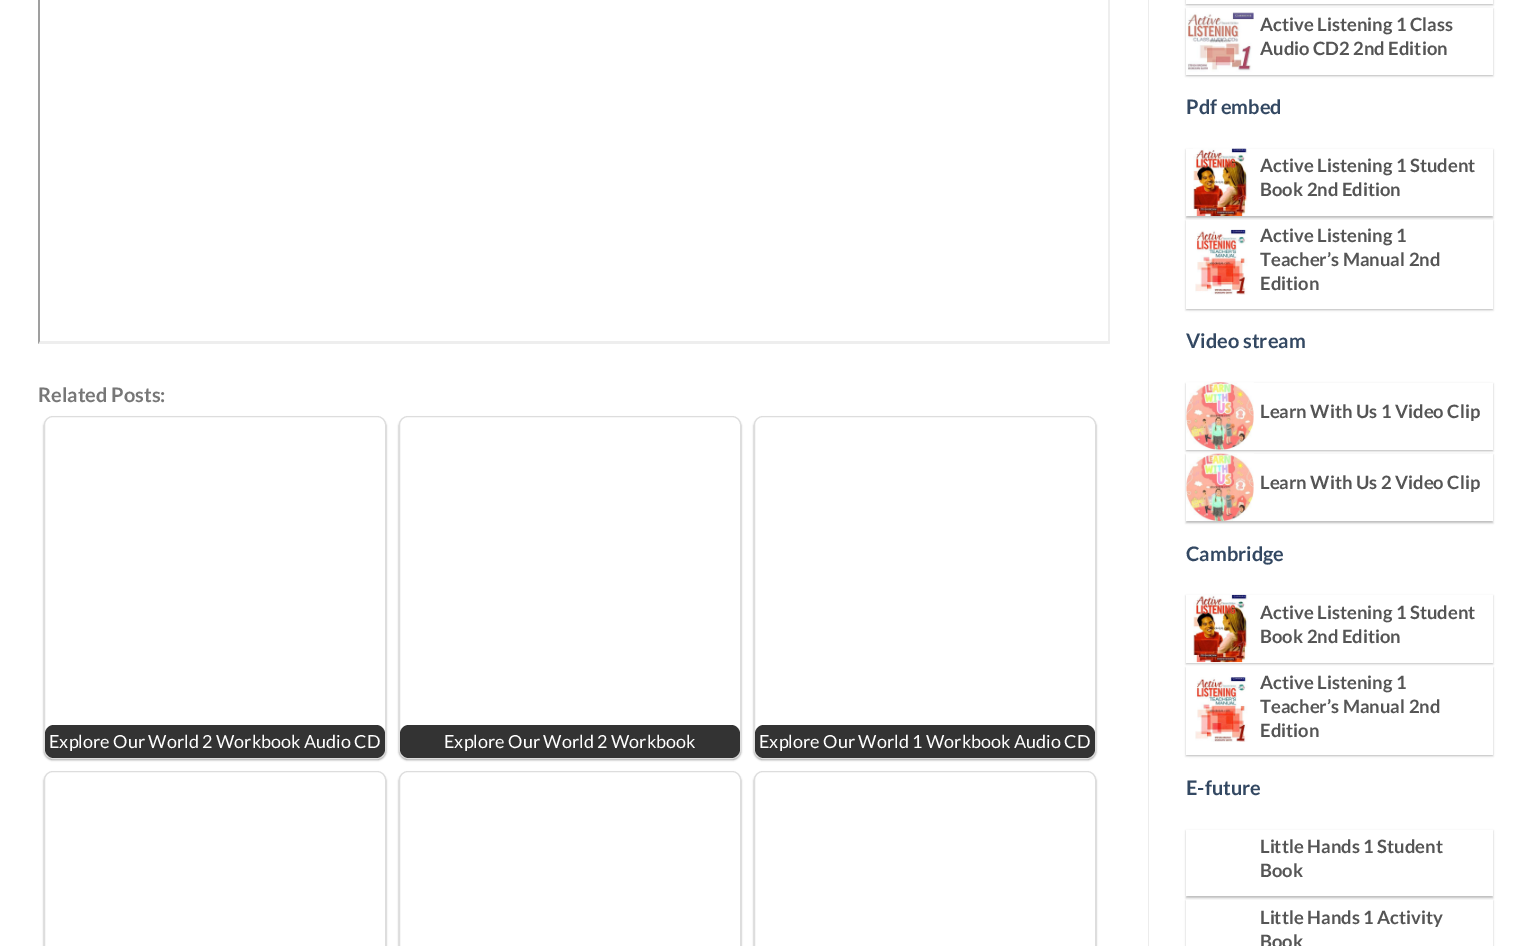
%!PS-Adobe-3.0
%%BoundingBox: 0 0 1529 946
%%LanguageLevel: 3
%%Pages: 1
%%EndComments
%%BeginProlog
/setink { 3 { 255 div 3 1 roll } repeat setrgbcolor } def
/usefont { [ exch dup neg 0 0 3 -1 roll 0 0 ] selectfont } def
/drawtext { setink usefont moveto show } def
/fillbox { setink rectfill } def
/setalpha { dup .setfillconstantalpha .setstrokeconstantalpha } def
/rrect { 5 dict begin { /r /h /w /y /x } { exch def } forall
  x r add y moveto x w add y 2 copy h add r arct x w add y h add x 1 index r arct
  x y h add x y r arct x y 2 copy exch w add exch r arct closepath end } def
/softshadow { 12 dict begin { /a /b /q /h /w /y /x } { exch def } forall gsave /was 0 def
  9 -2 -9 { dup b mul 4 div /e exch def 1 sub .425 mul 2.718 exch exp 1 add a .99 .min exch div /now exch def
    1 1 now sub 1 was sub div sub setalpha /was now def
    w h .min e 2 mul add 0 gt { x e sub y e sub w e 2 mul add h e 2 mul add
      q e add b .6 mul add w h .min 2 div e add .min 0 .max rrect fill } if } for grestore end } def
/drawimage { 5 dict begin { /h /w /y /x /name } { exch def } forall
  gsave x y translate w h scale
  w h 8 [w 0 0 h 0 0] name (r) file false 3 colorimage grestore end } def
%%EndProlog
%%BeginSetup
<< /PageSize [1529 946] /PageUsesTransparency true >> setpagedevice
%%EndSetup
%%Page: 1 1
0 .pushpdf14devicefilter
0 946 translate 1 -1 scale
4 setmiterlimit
0 0 1529 946 255 255 255 fillbox
238 238 238 setink
1110 -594 moveto 1110 344 lineto 1108 341 lineto 1108 -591 lineto closepath fill
1110 344 moveto 38 344 lineto 40 341 lineto 1108 341 lineto closepath fill
159 159 159 setink
38 344 moveto 38 -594 lineto 40 -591 lineto 40 341 lineto closepath fill
(Related Posts:) 38 402 /Lato-Bold 20 119 119 119 drawtext
gsave
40 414 moveto 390 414 lineto 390 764 lineto 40 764 lineto closepath 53 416 moveto 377 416 lineto 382 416 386 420 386 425 curveto 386 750 lineto 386 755 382 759 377 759 curveto 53 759 lineto 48 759 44 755 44 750 curveto 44 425 lineto 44 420 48 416 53 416 curveto closepath eoclip newpath
0 0 0 setink
44 418 342 342 9 1 0.4 softshadow
grestore
221 221 221 setink
44.5 416.5 341 342 8.5 rrect stroke
gsave
45 418 340 340 8 rrect clip newpath
0.8 setalpha
0 0 0 setink
45 725 340 33 9 rrect fill
grestore
(Explore Our World 2 Workbook Audio CD) 49 748 /Lato-Regular 18 255 255 255 drawtext
gsave
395 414 moveto 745 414 lineto 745 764 lineto 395 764 lineto closepath 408 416 moveto 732 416 lineto 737 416 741 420 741 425 curveto 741 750 lineto 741 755 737 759 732 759 curveto 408 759 lineto 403 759 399 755 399 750 curveto 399 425 lineto 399 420 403 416 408 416 curveto closepath eoclip newpath
0 0 0 setink
399 418 342 342 9 1 0.4 softshadow
grestore
221 221 221 setink
399.5 416.5 341 342 8.5 rrect stroke
gsave
400 418 340 340 8 rrect clip newpath
0.8 setalpha
0 0 0 setink
400 725 340 33 9 rrect fill
grestore
(Explore Our World 2 Workbook) 444 748 /Lato-Regular 18 255 255 255 drawtext
gsave
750 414 moveto 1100 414 lineto 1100 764 lineto 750 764 lineto closepath 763 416 moveto 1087 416 lineto 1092 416 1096 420 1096 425 curveto 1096 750 lineto 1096 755 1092 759 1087 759 curveto 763 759 lineto 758 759 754 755 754 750 curveto 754 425 lineto 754 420 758 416 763 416 curveto closepath eoclip newpath
0 0 0 setink
754 418 342 342 9 1 0.4 softshadow
grestore
221 221 221 setink
754.5 416.5 341 342 8.5 rrect stroke
gsave
755 418 340 340 8 rrect clip newpath
0.8 setalpha
0 0 0 setink
755 725 340 33 9 rrect fill
grestore
(Explore Our World 1 Workbook Audio CD) 759 748 /Lato-Regular 18 255 255 255 drawtext
gsave
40 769 moveto 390 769 lineto 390 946 lineto 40 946 lineto closepath 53 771 moveto 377 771 lineto 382 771 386 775 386 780 curveto 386 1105 lineto 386 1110 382 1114 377 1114 curveto 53 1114 lineto 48 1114 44 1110 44 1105 curveto 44 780 lineto 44 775 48 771 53 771 curveto closepath eoclip newpath
0 0 0 setink
44 773 342 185 9 1 0.4 softshadow
grestore
221 221 221 setink
44.5 771.5 341 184 8.5 rrect stroke
gsave
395 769 moveto 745 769 lineto 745 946 lineto 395 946 lineto closepath 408 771 moveto 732 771 lineto 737 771 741 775 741 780 curveto 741 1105 lineto 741 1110 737 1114 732 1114 curveto 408 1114 lineto 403 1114 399 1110 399 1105 curveto 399 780 lineto 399 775 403 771 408 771 curveto closepath eoclip newpath
0 0 0 setink
399 773 342 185 9 1 0.4 softshadow
grestore
399.5 771.5 341 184 8.5 rrect stroke
gsave
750 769 moveto 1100 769 lineto 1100 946 lineto 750 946 lineto closepath 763 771 moveto 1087 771 lineto 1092 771 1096 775 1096 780 curveto 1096 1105 lineto 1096 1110 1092 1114 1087 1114 curveto 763 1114 lineto 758 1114 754 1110 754 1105 curveto 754 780 lineto 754 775 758 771 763 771 curveto closepath eoclip newpath
0 0 0 setink
754 773 342 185 9 1 0.4 softshadow
grestore
754.5 771.5 341 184 8.5 rrect stroke
1148 0 1 946 236 236 236 fillbox
0 0 0 setink
1186 -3 307 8 0 1 0.24 softshadow
1189 -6 301 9 0 2 0.12 softshadow
1186 0 307 4 255 255 255 fillbox
1239 0 1 1 250 254 254 fillbox
0 0 0 setink
1186 9 307 67 0 1 0.24 softshadow
1189 11 301 63 0 2 0.12 softshadow
1186 8 307 67 255 255 255 fillbox
(assets/img1.rgb) 1186 12 68 60 drawimage
(Active Listening 1 Class) 1260 31 /Lato-Bold 18.4 85 85 85 drawtext
(Audio CD2 2nd Edition) 1260 55 /Lato-Bold 18.4 85 85 85 drawtext
(Pdf embed) 1186 114 /Lato-Bold 20 51 72 98 drawtext
0 0 0 setink
1186 150 307 68 0 1 0.24 softshadow
1189 153 301 62 0 2 0.12 softshadow
1186 149 307 67 255 255 255 fillbox
(assets/img2.rgb) 1193 148 55 68 drawimage
(Active Listening 1 Student) 1260 172 /Lato-Bold 18.4 85 85 85 drawtext
(Book 2nd Edition) 1260 196 /Lato-Bold 18.4 85 85 85 drawtext
0 0 0 setink
1186 221 307 89 0 1 0.24 softshadow
1189 224 301 84 0 2 0.12 softshadow
1186 220 307 89 255 255 255 fillbox
(assets/img3.rgb) 1195 229 53 66 drawimage
(Active Listening 1) 1260 242 /Lato-Bold 18.4 85 85 85 drawtext
(Teacher’s Manual 2nd) 1260 266 /Lato-Bold 18.4 85 85 85 drawtext
(Edition) 1260 290 /Lato-Bold 18.4 85 85 85 drawtext
(Video stream) 1186 348 /Lato-Bold 20 51 72 98 drawtext
0 0 0 setink
1186 384 307 67 0 1 0.24 softshadow
1189 386 301 63 0 2 0.12 softshadow
1186 383 307 67 255 255 255 fillbox
(assets/img4.rgb) 1186 382 68 68 drawimage
(Learn With Us 1 Video Clip) 1260 418 /Lato-Bold 18.4 85 85 85 drawtext
0 0 0 setink
1186 455 307 68 0 1 0.24 softshadow
1189 458 301 62 0 2 0.12 softshadow
1186 454 307 67 255 255 255 fillbox
(assets/img5.rgb) 1186 453 68 68 drawimage
(Learn With Us 2 Video Clip) 1260 489 /Lato-Bold 18.4 85 85 85 drawtext
(Cambridge) 1186 561 /Lato-Bold 20 51 72 98 drawtext
0 0 0 setink
1186 596 307 68 0 1 0.24 softshadow
1186 595 307 68 255 255 255 fillbox
(assets/img6.rgb) 1193 594 55 69 drawimage
(Active Listening 1 Student) 1260 619 /Lato-Bold 18.4 85 85 85 drawtext
(Book 2nd Edition) 1260 643 /Lato-Bold 18.4 85 85 85 drawtext
0 0 0 setink
1186 668 307 88 0 1 0.24 softshadow
1189 670 301 84 0 2 0.12 softshadow
1186 666 307 89 255 255 255 fillbox
(assets/img7.rgb) 1195 677 53 65 drawimage
(Active Listening 1) 1260 689 /Lato-Bold 18.4 85 85 85 drawtext
(Teacher’s Manual 2nd) 1260 713 /Lato-Bold 18.4 85 85 85 drawtext
(Edition) 1260 737 /Lato-Bold 18.4 85 85 85 drawtext
(E-future) 1186 795 /Lato-Bold 20 51 72 98 drawtext
0 0 0 setink
1186 831 307 67 0 1 0.24 softshadow
1189 834 301 61 0 2 0.12 softshadow
1186 830 307 66 255 255 255 fillbox
(Little Hands 1 Student) 1260 853 /Lato-Bold 18.4 85 85 85 drawtext
(Book) 1260 877 /Lato-Bold 18.4 85 85 85 drawtext
0 0 0 setink
1186 901 307 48 0 1 0.24 softshadow
1186 900 307 46 255 255 255 fillbox
(Little Hands 1 Activity) 1260 924 /Lato-Bold 18.4 85 85 85 drawtext
(Book) 1260 948 /Lato-Bold 18.4 85 85 85 drawtext
.poppdf14devicefilter showpage
%%EOF
